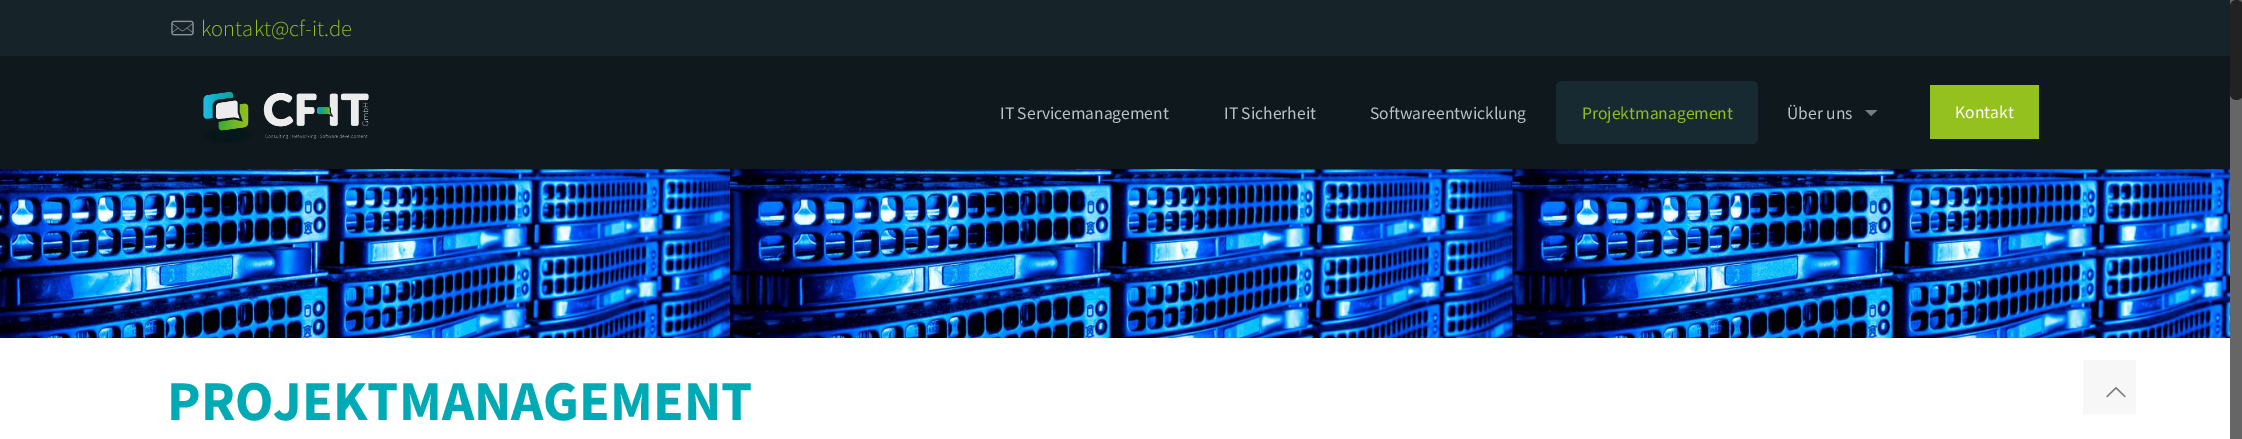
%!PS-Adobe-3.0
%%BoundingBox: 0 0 2242 439
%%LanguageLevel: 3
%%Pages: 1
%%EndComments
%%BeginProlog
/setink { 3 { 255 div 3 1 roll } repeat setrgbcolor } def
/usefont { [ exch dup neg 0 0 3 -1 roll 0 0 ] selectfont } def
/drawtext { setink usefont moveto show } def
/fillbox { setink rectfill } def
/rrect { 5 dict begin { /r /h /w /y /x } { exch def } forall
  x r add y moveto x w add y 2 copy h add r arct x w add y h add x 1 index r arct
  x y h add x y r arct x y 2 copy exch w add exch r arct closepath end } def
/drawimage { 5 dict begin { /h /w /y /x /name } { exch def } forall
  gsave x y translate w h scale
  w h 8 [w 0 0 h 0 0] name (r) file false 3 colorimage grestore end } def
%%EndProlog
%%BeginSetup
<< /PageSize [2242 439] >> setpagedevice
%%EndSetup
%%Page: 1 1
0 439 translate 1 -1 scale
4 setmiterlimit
0 0 2242 439 255 255 255 fillbox
(assets/img1.rgb) 0 169 2230 169 drawimage
0 0 2230 56 22 35 40 fillbox
(assets/img2.rgb) 171 20 23 16 drawimage
(kontakt@cf-it.de) 201 36 /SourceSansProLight-Light 22.5 149 193 31 drawtext
0 56 2230 113 14 24 29 fillbox
(assets/img3.rgb) 203 91 166 52 drawimage
(IT Servicemanagement) 1000 119 /SourceSansPro-Regular 17.5 185 193 196 drawtext
(IT Sicherheit) 1224 119 /SourceSansPro-Regular 17.5 185 193 196 drawtext
(Softwareentwicklung) 1370 119 /SourceSansPro-Regular 17.5 185 193 196 drawtext
24 42 49 setink
1556 81 202 63 6 rrect fill
(Projektmanagement) 1582 119 /SourceSansPro-Regular 17.5 142 191 28 drawtext
(Über uns) 1787 119 /SourceSansPro-Regular 17.5 185 193 196 drawtext
117 125 129 setink
1865 110 moveto 1877.5 110 lineto 1871 116 lineto closepath fill
1930 85 109 54 149 193 31 fillbox
(Kontakt) 1955 118 /SourceSansPro-Regular 17.5 255 255 255 drawtext
(PROJEKTMANAGEMENT) 167 420 /SourceSansPro-Bold 56.25 0 170 181 drawtext
2083 360 53 54 247 247 247 fillbox
(assets/img4.rgb) 2106 387 20 11 drawimage
2230 0 12 439 102 102 102 fillbox
34 34 34 setink
2230 0 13 100 6.5 rrect fill
showpage
%%EOF
